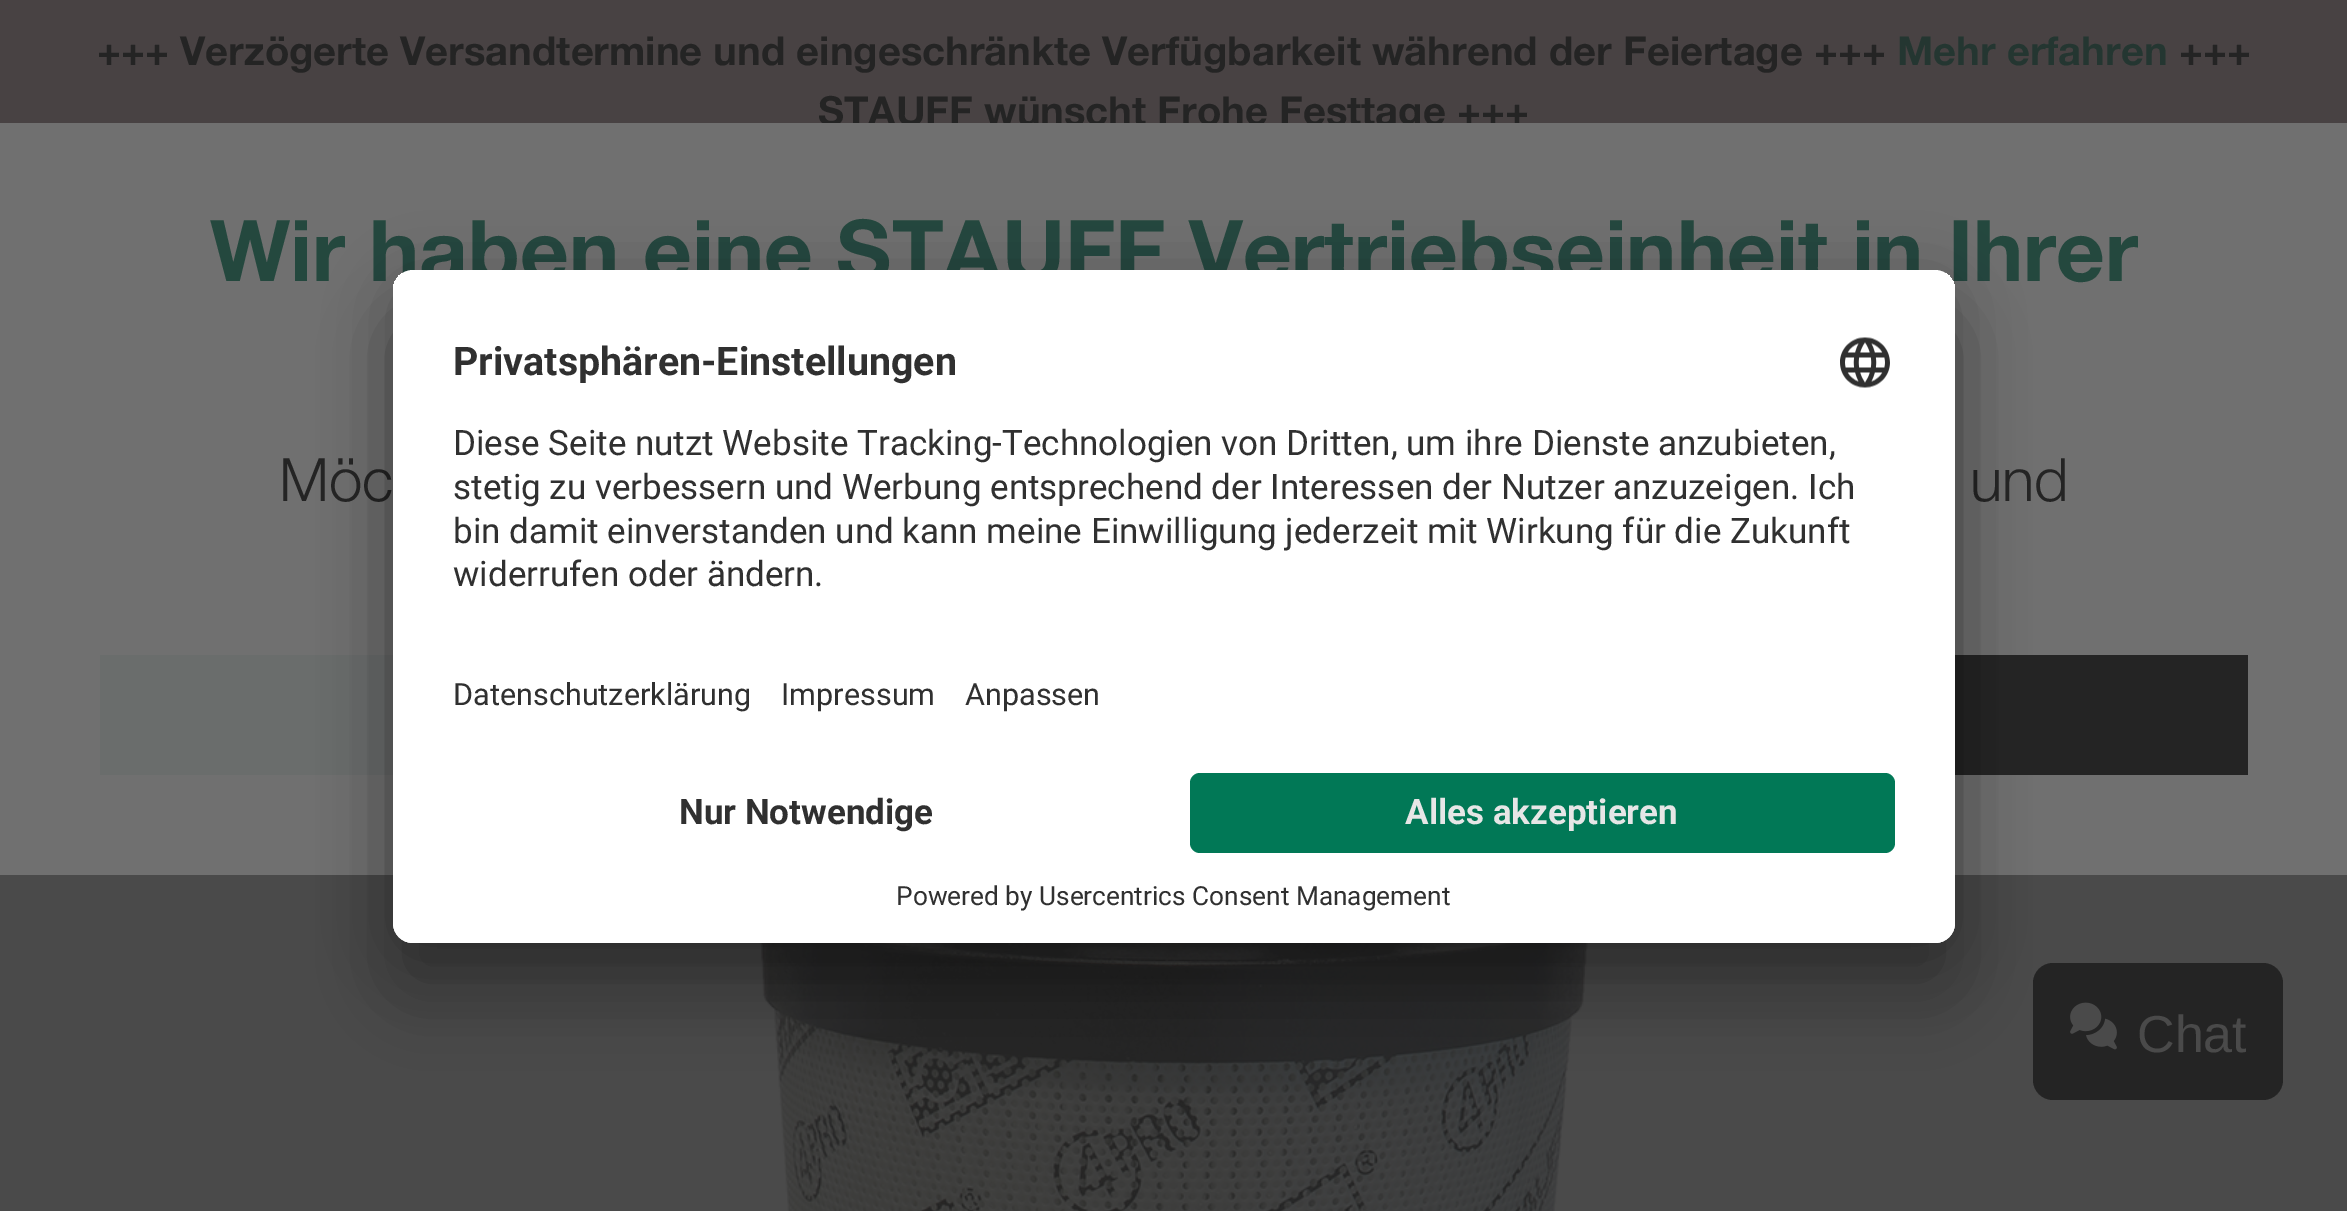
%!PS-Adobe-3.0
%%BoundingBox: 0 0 2347 1211
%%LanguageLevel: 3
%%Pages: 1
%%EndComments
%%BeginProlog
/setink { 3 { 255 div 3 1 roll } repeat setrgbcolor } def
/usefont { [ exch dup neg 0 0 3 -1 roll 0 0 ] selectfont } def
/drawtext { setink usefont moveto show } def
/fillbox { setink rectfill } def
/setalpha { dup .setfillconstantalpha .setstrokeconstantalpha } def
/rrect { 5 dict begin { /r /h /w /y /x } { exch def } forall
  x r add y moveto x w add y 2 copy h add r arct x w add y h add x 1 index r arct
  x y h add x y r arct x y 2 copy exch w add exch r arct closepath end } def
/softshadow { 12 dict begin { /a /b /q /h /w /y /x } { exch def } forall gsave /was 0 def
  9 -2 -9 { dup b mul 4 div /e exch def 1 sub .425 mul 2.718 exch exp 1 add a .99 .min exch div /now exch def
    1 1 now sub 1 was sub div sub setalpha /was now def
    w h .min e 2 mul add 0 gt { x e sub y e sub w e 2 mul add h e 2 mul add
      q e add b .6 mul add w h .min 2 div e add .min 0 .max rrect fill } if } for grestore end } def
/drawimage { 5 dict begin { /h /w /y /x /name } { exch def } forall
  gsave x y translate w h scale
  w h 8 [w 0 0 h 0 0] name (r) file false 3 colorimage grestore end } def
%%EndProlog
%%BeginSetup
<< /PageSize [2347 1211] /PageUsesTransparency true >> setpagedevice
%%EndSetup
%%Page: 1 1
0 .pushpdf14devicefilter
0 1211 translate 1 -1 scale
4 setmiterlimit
0 0 2347 1211 74 74 74 fillbox
0 0 2347 123 72 66 67 fillbox
(+++ Verzögerte Versandtermine und eingeschränkte Verfügbarkeit während der Feiertage +++) 97 65 /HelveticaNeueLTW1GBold-Bold 40 36 36 36 drawtext
(Mehr erfahren) 1897 65 /HelveticaNeueLTW1GBold-Bold 40 36 54 49 drawtext
(+++) 2179 65 /HelveticaNeueLTW1GBold-Bold 40 36 36 36 drawtext
(STAUFF wünscht Frohe Festtage +++) 818 125 /HelveticaNeueLTW1GBold-Bold 40 36 36 36 drawtext
0 123 2347 752 112 112 112 fillbox
(Wir haben eine STAUFF Vertriebseinheit in Ihrer) 210 281 /HelveticaNeueLTW1GBold-Bold 85 36 72 62 drawtext
(Möc) 279 501 /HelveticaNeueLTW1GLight-Light 60 36 36 36 drawtext
(und) 1970 501 /HelveticaNeueLTW1GLight-Light 60 36 36 36 drawtext
100 655 293 120 106 109 108 fillbox
1955 655 293 120 36 36 36 fillbox
(assets/img2.rgb) 758 943 832 268 drawimage
2033 963 250 137 20 rrect fill
0 0 0 setink
393 320 1562 673 20 35 0.3 softshadow
393 283 1562 672 20 32.5 0.22 softshadow
255 255 255 setink
393 270 1562 673 20 rrect fill
gsave
393 270 1562 673 20 rrect clip newpath
413 270 moveto 1935 270 lineto 1946 270 1955 279 1955 290 curveto 1955 753 lineto 393 753 lineto 393 290 lineto 393 279 402 270 413 270 curveto closepath clip newpath
393 273 1562 480 255 255 255 fillbox
grestore
(Privatsphären-Einstellungen) 453 375 /Roboto-Bold 39.4 48 48 48 drawtext
(assets/img1.rgb) 1840 337 50 51 drawimage
(Diese Seite nutzt Website Tracking-Technologien von Dritten, um ihre Dienste anzubieten,) 453 455 /Roboto-Regular 35 48 48 48 drawtext
(stetig zu verbessern und Werbung entsprechend der Interessen der Nutzer anzuzeigen. Ich) 453 499 /Roboto-Regular 35 48 48 48 drawtext
(bin damit einverstanden und kann meine Einwilligung jederzeit mit Wirkung für die Zukunft) 453 543 /Roboto-Regular 35 48 48 48 drawtext
(widerrufen oder ändern.) 453 586 /Roboto-Regular 35 48 48 48 drawtext
(Datenschutzerklärung) 453 705 /Roboto-Regular 30.6 48 48 48 drawtext
(Impressum) 781 705 /Roboto-Regular 30.6 48 48 48 drawtext
(Anpassen) 965 705 /Roboto-Regular 30.6 48 48 48 drawtext
255 255 255 setink
393 753 moveto 1955 753 lineto 1955 923 lineto 1955 934 1946 943 1935 943 curveto 413 943 lineto 402 943 393 934 393 923 curveto closepath fill
(Nur Notwendige) 679 824 /Roboto-Bold 35 48 48 48 drawtext
1 120 86 setink
1190 773 705 80 10 rrect fill
(Alles akzeptieren) 1405 824 /Roboto-Bold 35 230 230 230 drawtext
(Powered by Usercentrics Consent Management) 896 905 /Roboto-Regular 26.25 48 48 48 drawtext
(assets/img3.rgb) 2070 1002 47 48 drawimage
(Chat) 2137 1052 /LiberationSans-Regular 52 74 74 74 drawtext
.poppdf14devicefilter showpage
%%EOF
